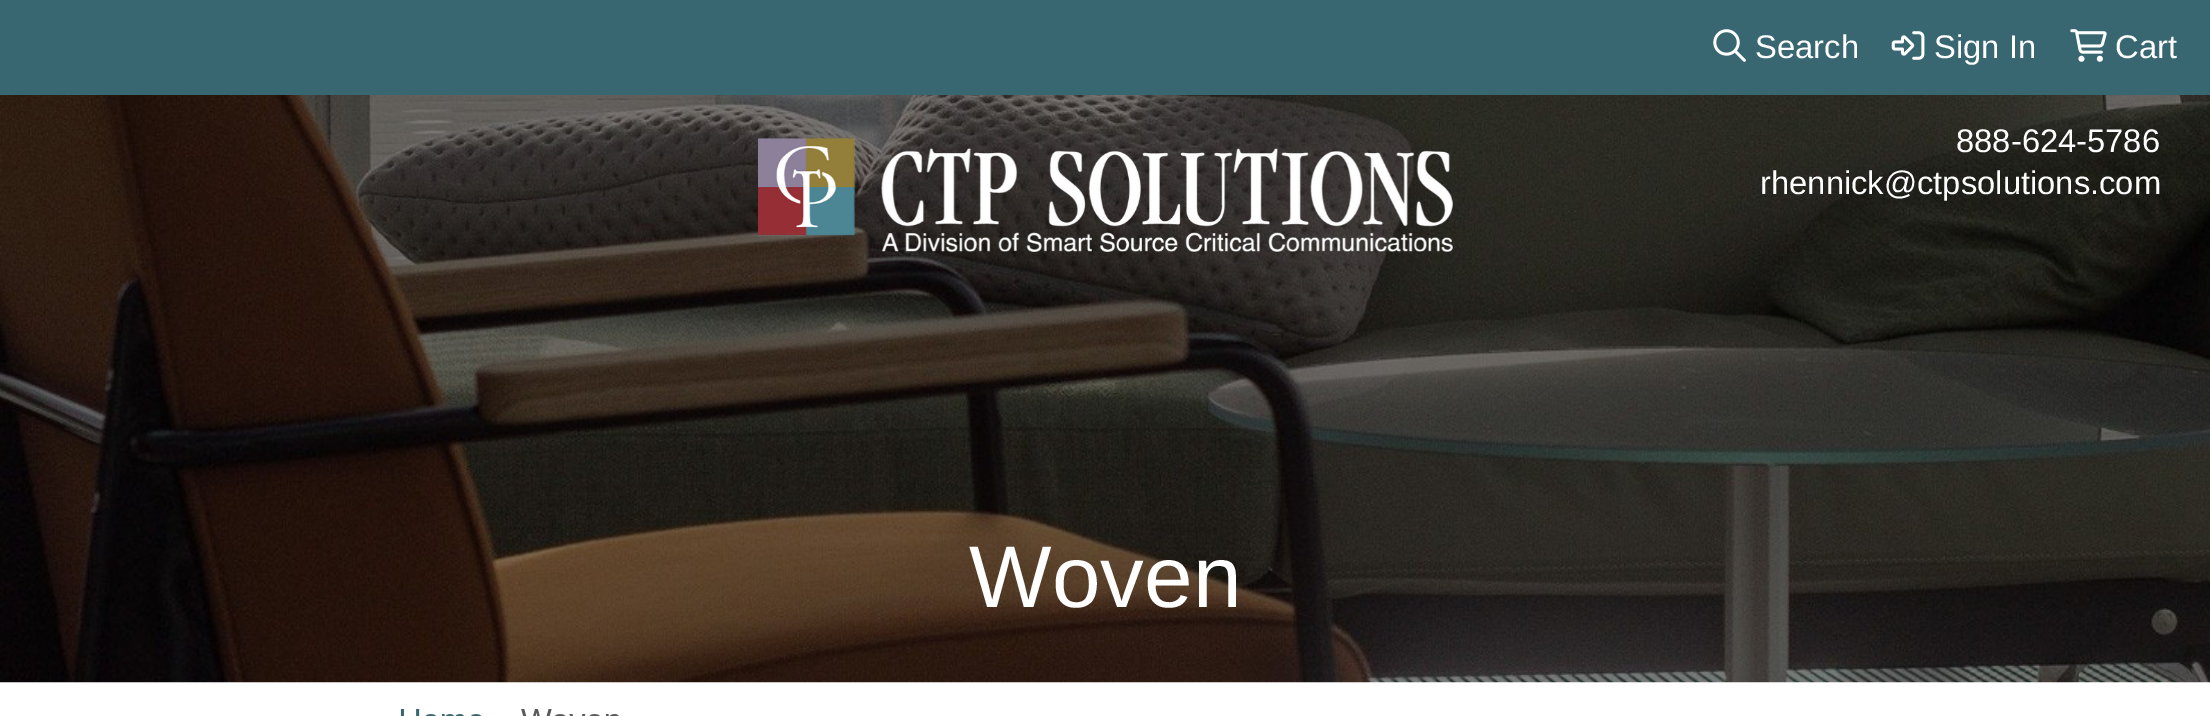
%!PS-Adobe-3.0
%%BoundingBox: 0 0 2210 716
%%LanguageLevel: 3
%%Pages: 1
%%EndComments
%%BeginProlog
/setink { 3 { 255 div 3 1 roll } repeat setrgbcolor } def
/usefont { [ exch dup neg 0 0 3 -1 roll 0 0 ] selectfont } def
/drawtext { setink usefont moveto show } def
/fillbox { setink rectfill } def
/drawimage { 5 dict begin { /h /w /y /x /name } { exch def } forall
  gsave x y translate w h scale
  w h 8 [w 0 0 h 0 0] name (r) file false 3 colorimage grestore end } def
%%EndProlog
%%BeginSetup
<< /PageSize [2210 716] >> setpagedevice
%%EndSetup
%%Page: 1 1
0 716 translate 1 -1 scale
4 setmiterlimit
0 0 2210 716 255 255 255 fillbox
0 0 2210 95 56 103 113 fillbox
(assets/img1.rgb) 1713 29 33 33 drawimage
(Search) 1755 58 /LiberationSans-Regular 32.75 255 255 255 drawtext
(assets/img2.rgb) 1891 31 34 29 drawimage
(Sign In) 1934 58 /LiberationSans-Regular 32.75 255 255 255 drawtext
(assets/img3.rgb) 2070 29 37 33 drawimage
(Cart) 2115 58 /LiberationSans-Regular 32.75 255 255 255 drawtext
(assets/img5.rgb) 0 95 2210 588 drawimage
(assets/img4.rgb) 758 138 695 114 drawimage
(888-624-5786) 1956 152 /LiberationSans-Regular 32.75 255 255 255 drawtext
(rhennick@ctpsolutions.com) 1760 194 /LiberationSans-Regular 32.75 255 255 255 drawtext
(Woven) 969 607 /LiberationSans-Regular 87.5 255 255 255 drawtext
(assets/img6.rgb) 400 709 219 7 drawimage
showpage
%%EOF
